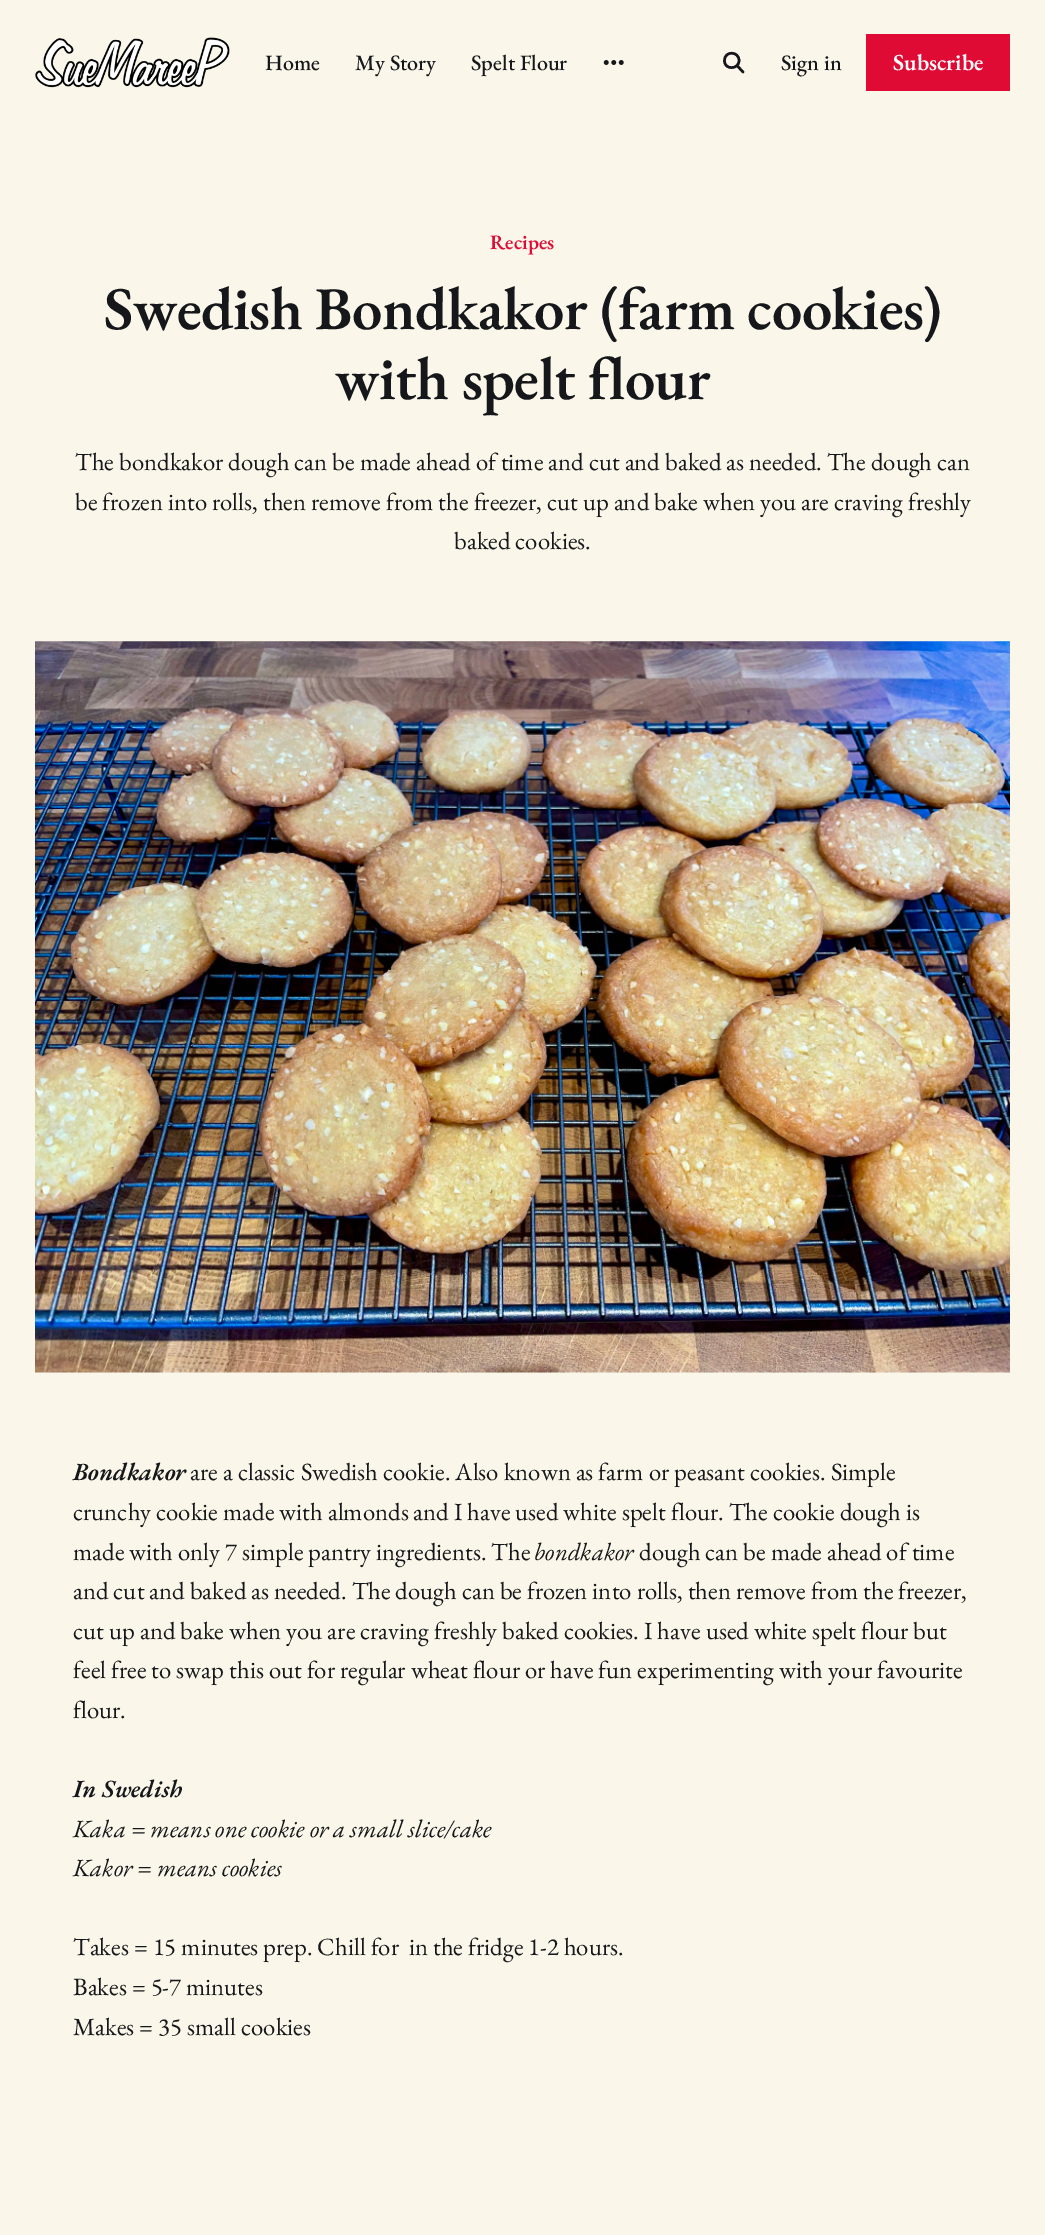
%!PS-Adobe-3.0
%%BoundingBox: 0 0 1045 2235
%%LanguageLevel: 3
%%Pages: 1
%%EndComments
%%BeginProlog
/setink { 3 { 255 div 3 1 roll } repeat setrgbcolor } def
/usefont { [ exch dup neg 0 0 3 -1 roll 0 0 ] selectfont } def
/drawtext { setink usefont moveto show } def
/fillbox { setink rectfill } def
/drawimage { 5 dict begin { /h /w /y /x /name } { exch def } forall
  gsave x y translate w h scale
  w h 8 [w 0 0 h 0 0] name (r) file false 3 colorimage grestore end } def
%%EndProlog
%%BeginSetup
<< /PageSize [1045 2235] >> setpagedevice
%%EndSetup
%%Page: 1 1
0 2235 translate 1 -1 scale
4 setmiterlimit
0 0 1045 2235 250 246 233 fillbox
(assets/img1.rgb) 35 37 195 51 drawimage
(Home) 265 70 /EBGaramond-Medium 22 21 23 26 drawtext
(My Story) 355 70 /EBGaramond-Medium 22 21 23 26 drawtext
(Spelt Flour) 471 70 /EBGaramond-Medium 22 21 23 26 drawtext
(assets/img2.rgb) 603 60 21 5 drawimage
2.5 setlinewidth
1 setlinecap
1 setlinejoin
743 72 moveto 737 65.5 lineto closepath 739 60.5 moveto 739 70 724 70 724.5 60.5 curveto 724.5 50.5 739 51 739 60.5 curveto closepath stroke
(Sign in) 781 70 /EBGaramond-Medium 22 21 23 26 drawtext
866 34 144 57 224 11 53 fillbox
(Subscribe) 893 70 /EBGaramond-SemiBold 23 255 255 255 drawtext
(Recipes) 490 249 /EBGaramond-SemiBold 20.5 224 11 53 drawtext
/EBGaramond-SemiBold 60.75 usefont
21 23 26 setink
104 329 moveto -0.6 0 (Swedish Bondkakor \(farm cookies\)) ashow
335 399 moveto -0.6 0 (with spelt flour) ashow
(The bondkakor dough can be made ahead of time and cut and baked as needed. The dough can) 75 470 /EBGaramond-Regular 24.75 21 23 26 drawtext
(be frozen into rolls, then remove from the freezer, cut up and bake when you are craving freshly) 75 510 /EBGaramond-Regular 24.75 21 23 26 drawtext
(baked cookies.) 454 549 /EBGaramond-Regular 24.75 21 23 26 drawtext
(assets/img3.rgb) 35 641 975 732 drawimage
(Bondkakor) 73 1480 /EBGaramond-SemiBoldItalic 24.75 21 23 26 drawtext
(are a classic Swedish cookie. Also known as farm or peasant cookies. Simple) 190 1480 /EBGaramond-Regular 24.75 21 23 26 drawtext
(crunchy cookie made with almonds and I have used white spelt flour. The cookie dough is) 73 1520 /EBGaramond-Regular 24.75 21 23 26 drawtext
(made with only 7 simple pantry ingredients. The) 73 1560 /EBGaramond-Regular 24.75 21 23 26 drawtext
(bondkakor) 534 1560 /EBGaramond-Italic 24.75 21 23 26 drawtext
(dough can be made ahead of time) 639 1560 /EBGaramond-Regular 24.75 21 23 26 drawtext
(and cut and baked as needed. The dough can be frozen into rolls, then remove from the freezer,) 73 1599 /EBGaramond-Regular 24.75 21 23 26 drawtext
(cut up and bake when you are craving freshly baked cookies. I have used white spelt flour but) 73 1639 /EBGaramond-Regular 24.75 21 23 26 drawtext
(feel free to swap this out for regular wheat flour or have fun experimenting with your favourite) 73 1678 /EBGaramond-Regular 24.75 21 23 26 drawtext
(flour.) 73 1718 /EBGaramond-Regular 24.75 21 23 26 drawtext
(In Swedish) 73 1797 /EBGaramond-SemiBoldItalic 24.75 21 23 26 drawtext
(Kaka = means one cookie or a small slice/cake) 73 1837 /EBGaramond-Italic 24.75 21 23 26 drawtext
(Kakor = means cookies) 73 1876 /EBGaramond-Italic 24.75 21 23 26 drawtext
(Takes = 15 minutes prep. Chill for  in the fridge 1-2 hours.) 73 1955 /EBGaramond-Regular 24.75 21 23 26 drawtext
(Bakes = 5-7 minutes) 73 1995 /EBGaramond-Regular 24.75 21 23 26 drawtext
(Makes = 35 small cookies) 73 2035 /EBGaramond-Regular 24.75 21 23 26 drawtext
showpage
%%EOF
